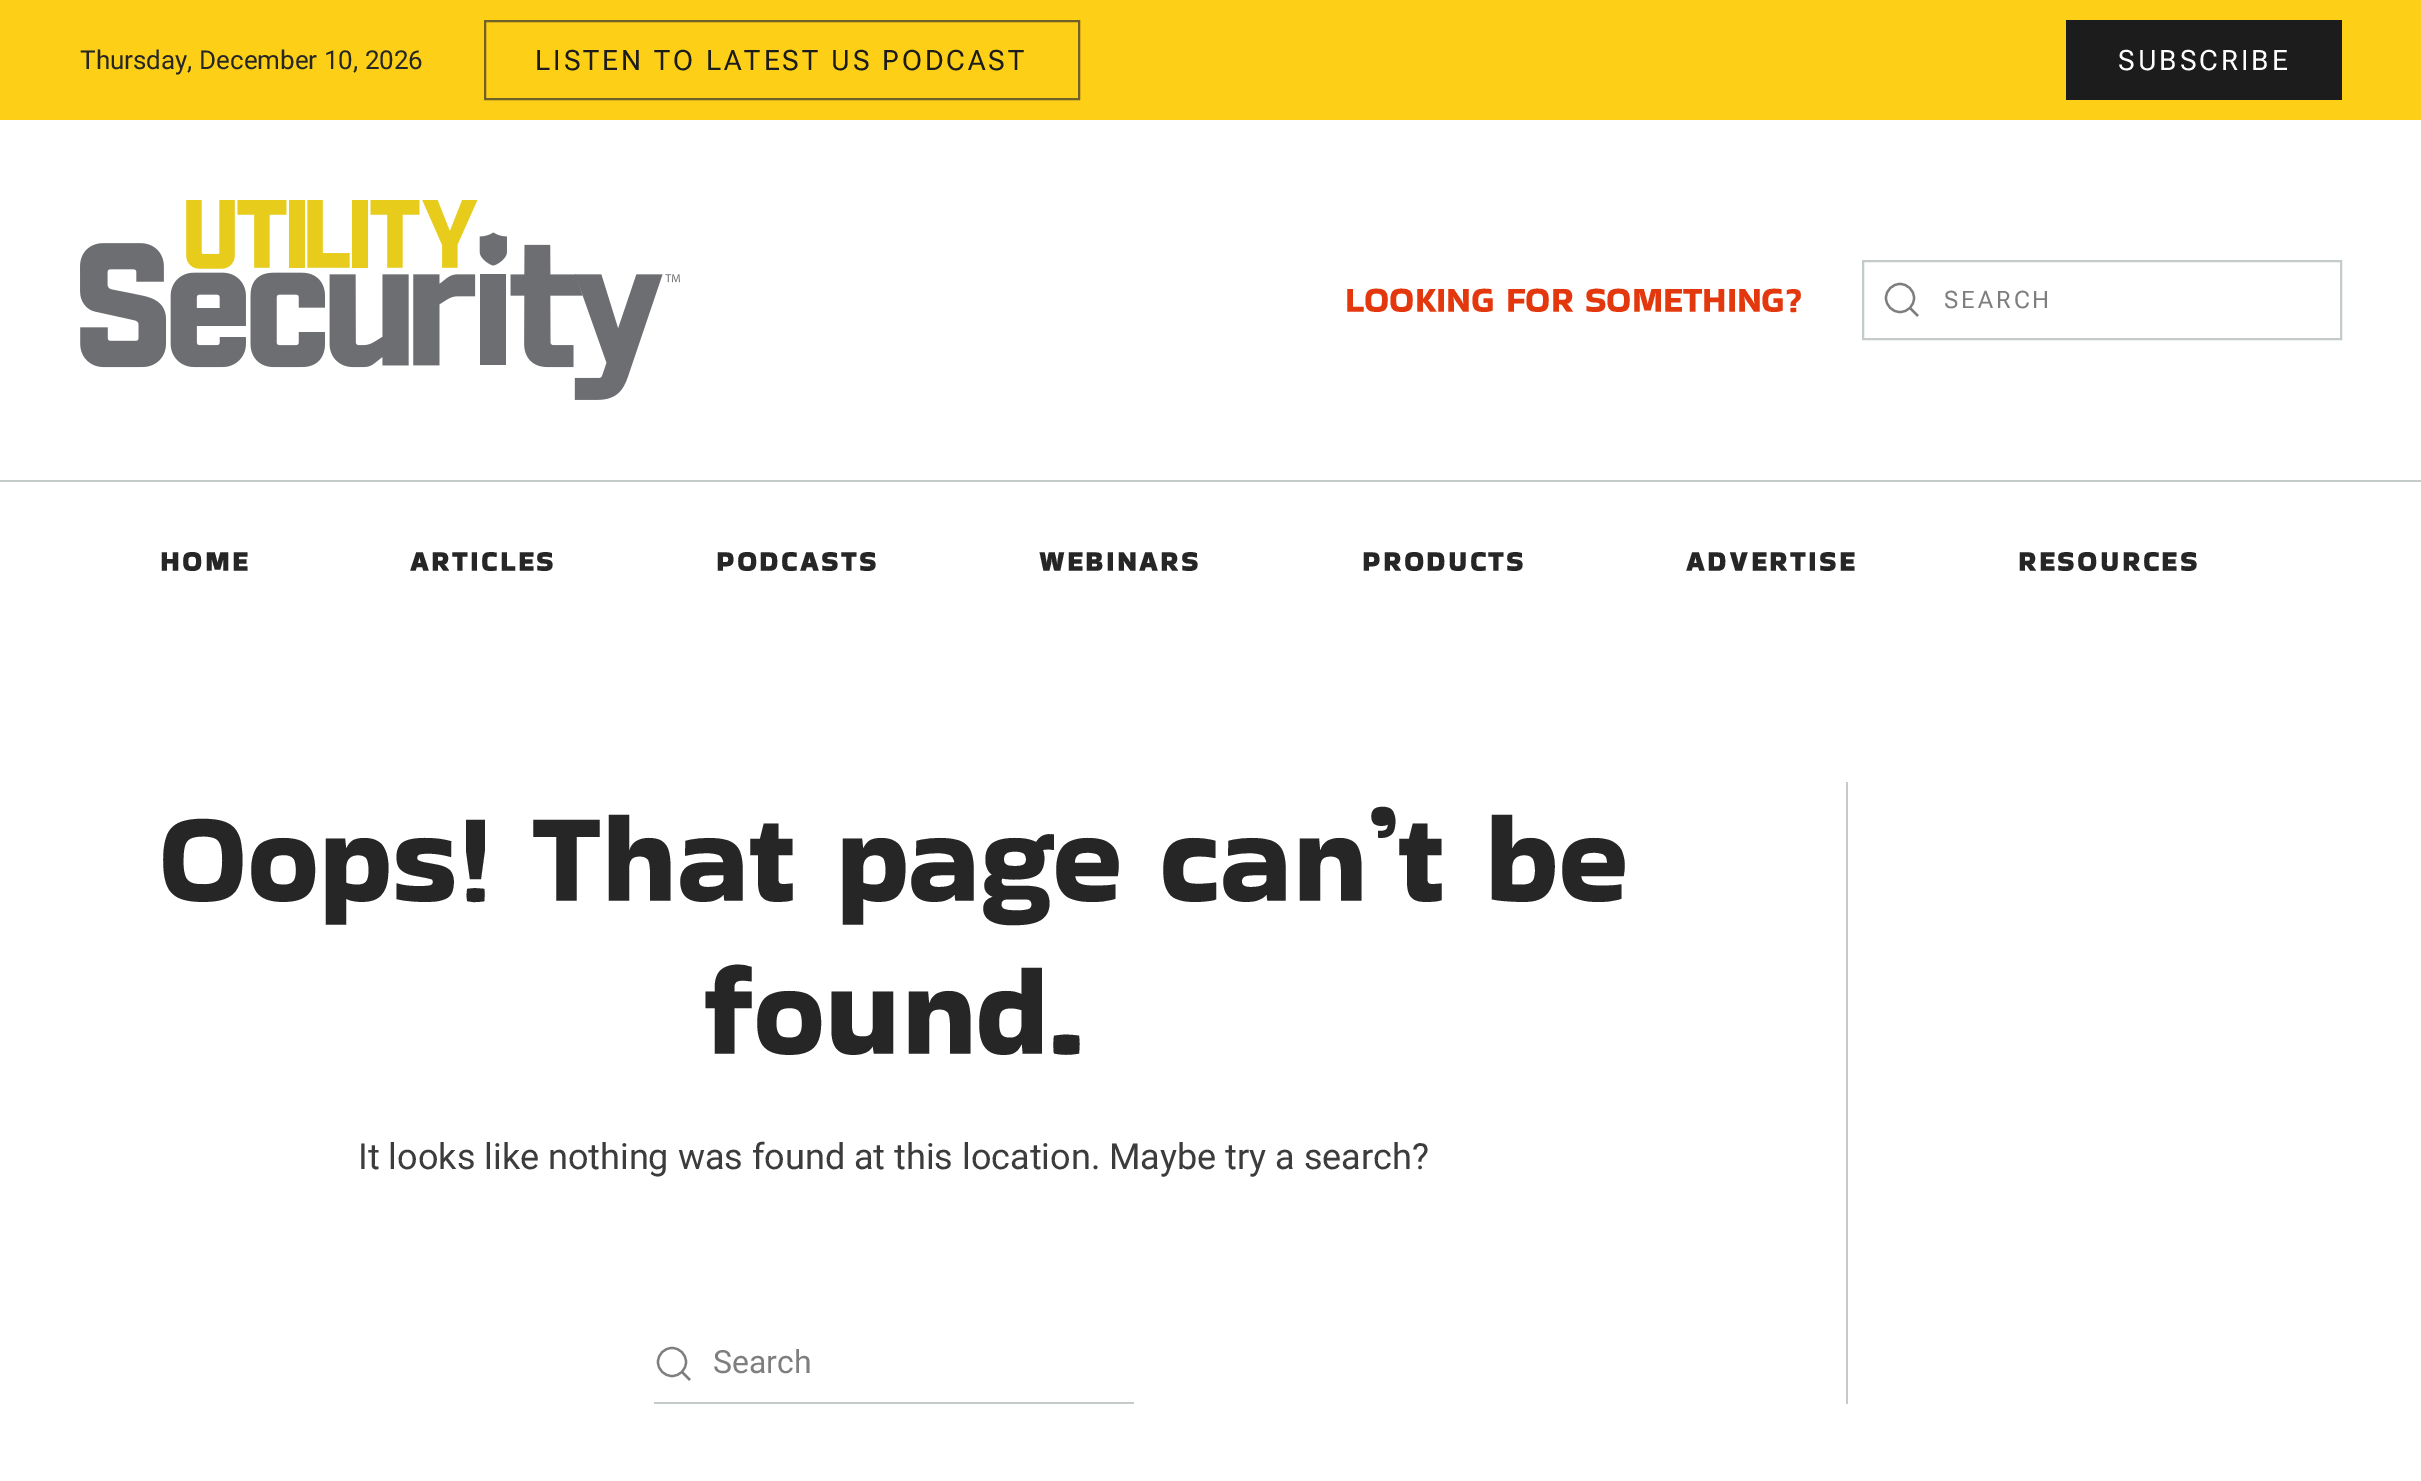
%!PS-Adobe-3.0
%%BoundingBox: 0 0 2421 1481
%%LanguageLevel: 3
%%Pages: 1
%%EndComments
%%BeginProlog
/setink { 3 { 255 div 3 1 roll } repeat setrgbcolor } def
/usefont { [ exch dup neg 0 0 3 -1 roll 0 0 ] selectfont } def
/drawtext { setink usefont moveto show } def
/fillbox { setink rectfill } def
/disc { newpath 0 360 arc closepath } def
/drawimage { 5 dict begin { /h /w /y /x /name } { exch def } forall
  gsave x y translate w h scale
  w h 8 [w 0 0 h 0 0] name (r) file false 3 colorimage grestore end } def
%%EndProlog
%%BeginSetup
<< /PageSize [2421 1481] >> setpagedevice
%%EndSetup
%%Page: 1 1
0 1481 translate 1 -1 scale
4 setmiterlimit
0 0 2421 1481 255 255 255 fillbox
0 0 2421 120 253 208 23 fillbox
(Thursday, December 10, 2026) 80 69 /Roboto-Regular 26 38 38 38 drawtext
110 97 41 setink
2 setlinewidth
485 21 594 78 rectstroke
/RobotoFlex-Regular 28 usefont
28 28 28 setink
535 70 moveto 3 0 (LISTEN TO LATEST US PODCAST) ashow
2066 20 276 80 28 28 28 fillbox
255 255 255 setink
2118 70 moveto 3 0 (SUBSCRIBE) ashow
0 480 2421 2 197 203 201 fillbox
(assets/img1.rgb) 80 200 600 200 drawimage
(LOOKING FOR SOMETHING?) 1345 312 /BakbakOne-Regular 36 227 56 13 drawtext
197 203 201 setink
1863 261 478 78 rectstroke
126 126 126 setink
2.2 setlinewidth
1900 298 14 disc stroke
1910 308 moveto 1918 316 lineto closepath stroke
/RobotoFlex-Regular 24 usefont
1944 308 moveto 3 0 (SEARCH) ashow
/BakbakOne-Bold 28 usefont
38 38 38 setink
160 571 moveto 3 0 (HOME) ashow
410 571 moveto 3 0 (ARTICLES) ashow
716 571 moveto 3 0 (PODCASTS) ashow
1039 571 moveto 3 0 (WEBINARS) ashow
1362 571 moveto 3 0 (PRODUCTS) ashow
1686 571 moveto 3 0 (ADVERTISE) ashow
2018 571 moveto 3 0 (RESOURCES) ashow
(Oops! That page can’t be) 158 902 /BakbakOne-Regular 128 38 38 38 drawtext
(found.) 703 1055 /BakbakOne-Regular 128 38 38 38 drawtext
(It looks like nothing was found at this location. Maybe try a search?) 358 1169 /Roboto-Regular 36 60 60 60 drawtext
126 126 126 setink
672 1362 14 disc stroke
682 1372 moveto 690 1380 lineto closepath stroke
654 1402 480 2 197 203 201 fillbox
(Search) 713 1373 /Roboto-Regular 32 126 126 126 drawtext
1846 782 2 622 197 203 201 fillbox
showpage
%%EOF
